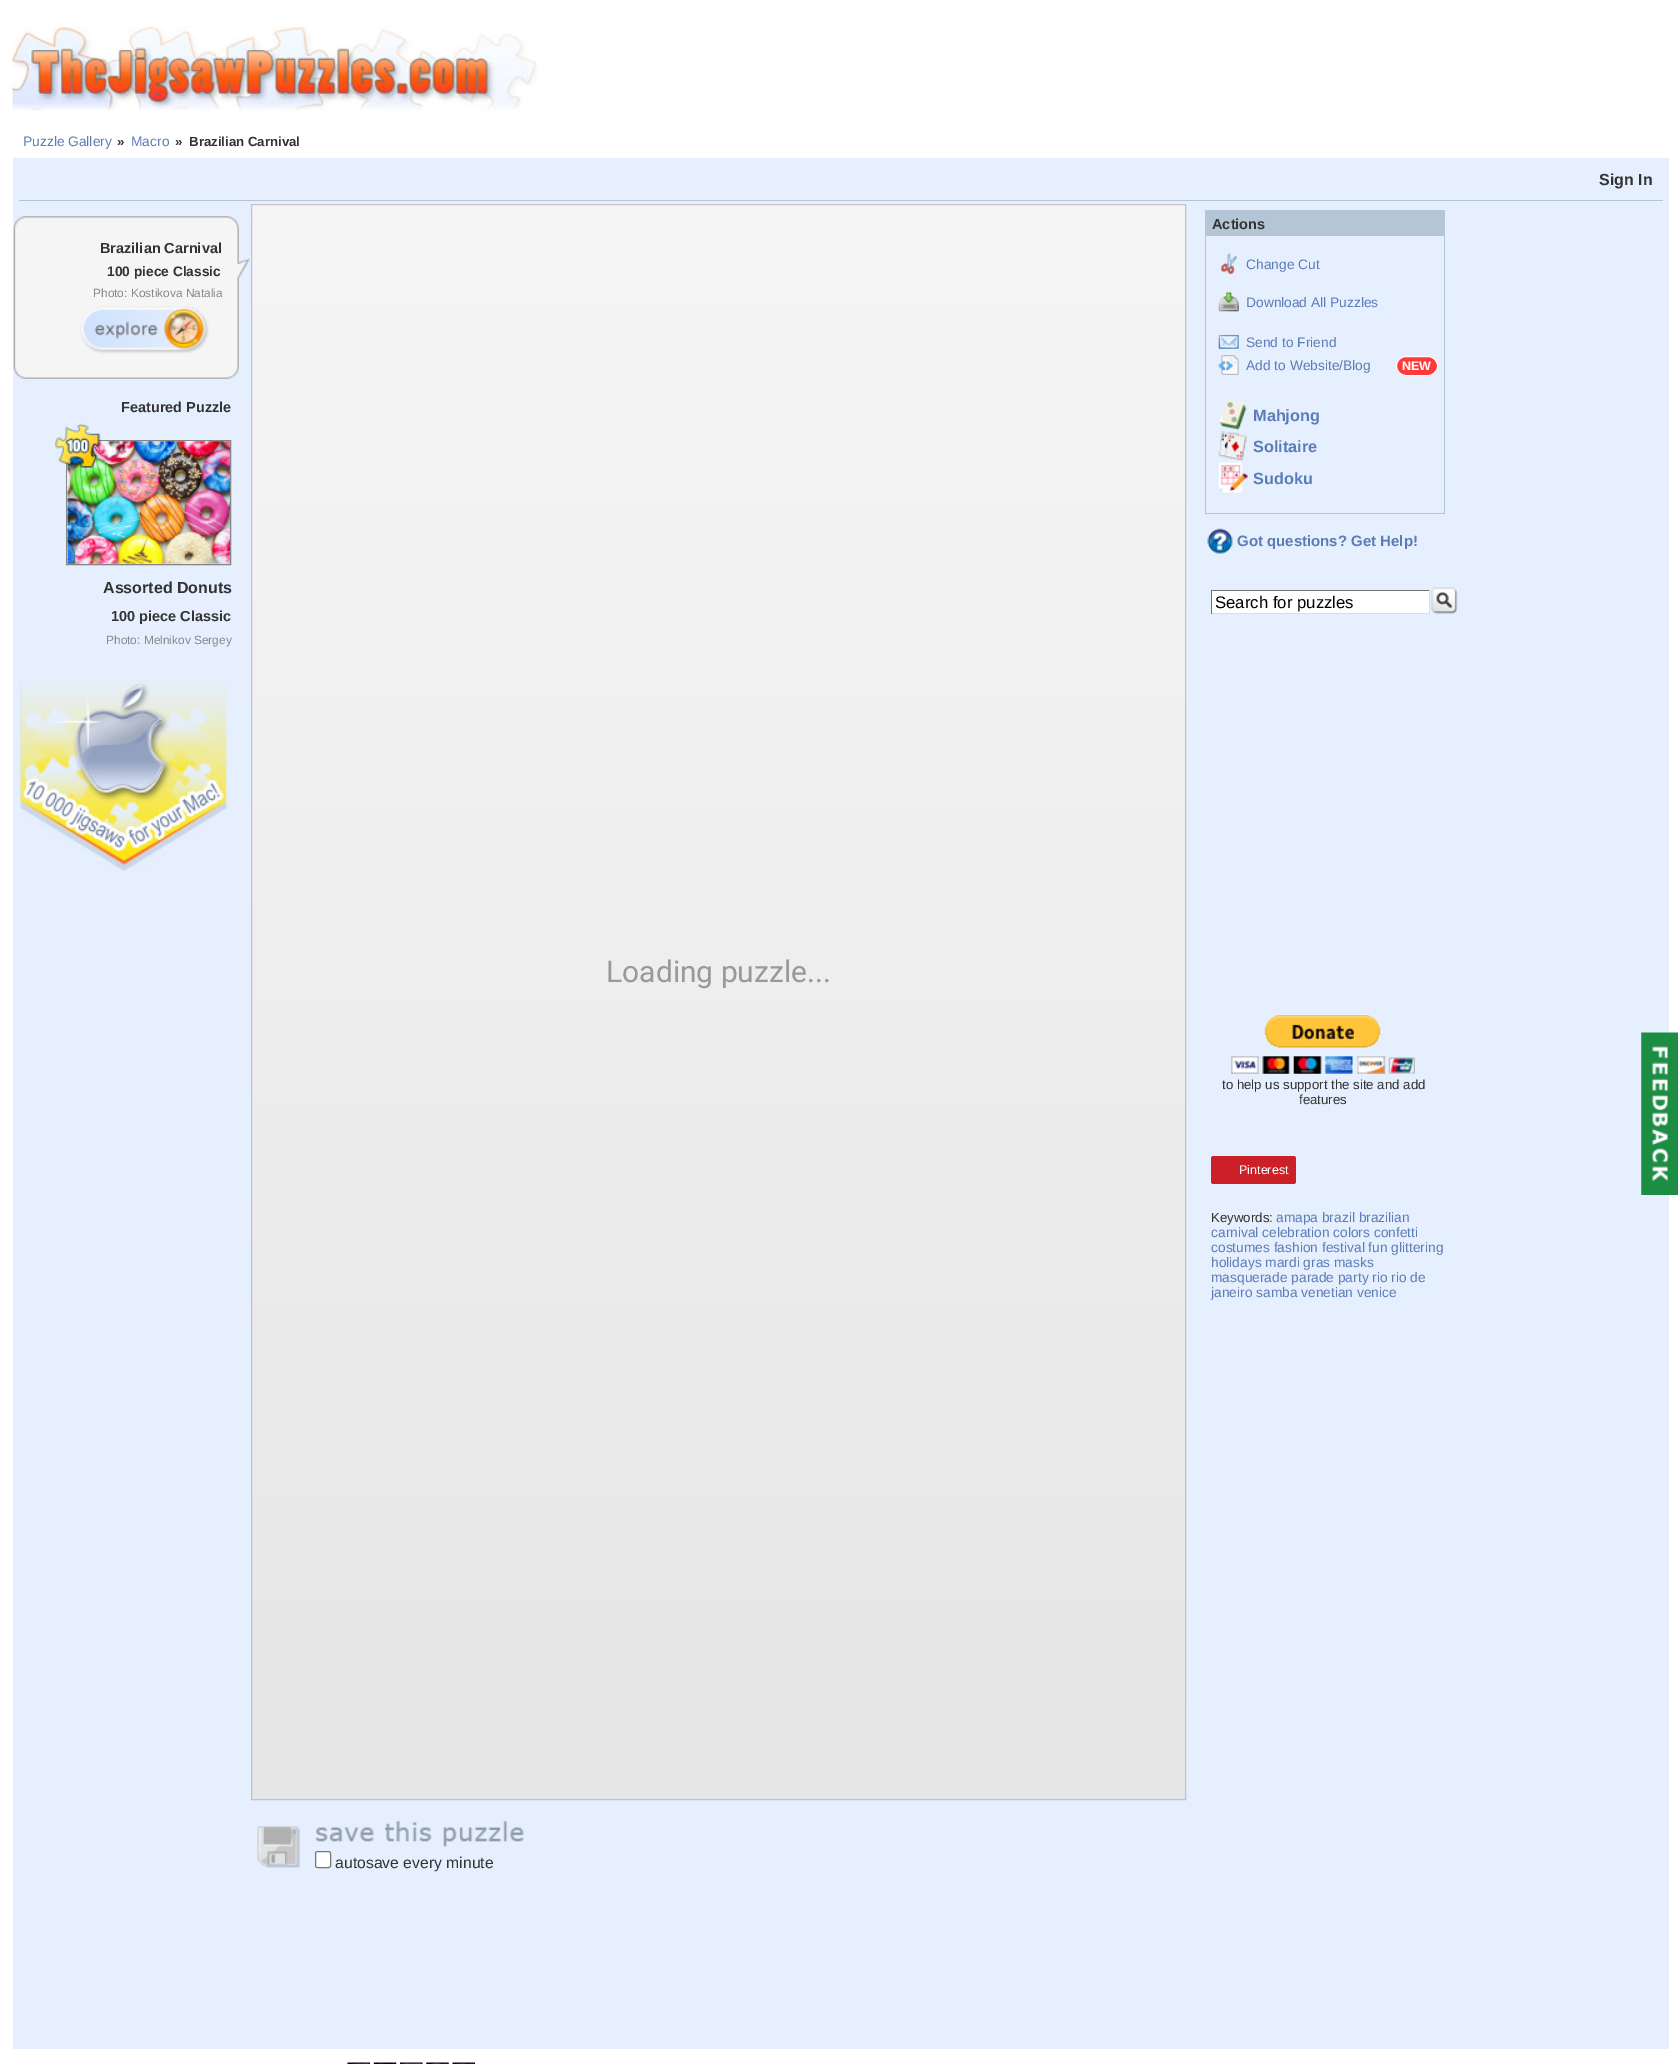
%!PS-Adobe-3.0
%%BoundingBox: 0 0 1678 2064
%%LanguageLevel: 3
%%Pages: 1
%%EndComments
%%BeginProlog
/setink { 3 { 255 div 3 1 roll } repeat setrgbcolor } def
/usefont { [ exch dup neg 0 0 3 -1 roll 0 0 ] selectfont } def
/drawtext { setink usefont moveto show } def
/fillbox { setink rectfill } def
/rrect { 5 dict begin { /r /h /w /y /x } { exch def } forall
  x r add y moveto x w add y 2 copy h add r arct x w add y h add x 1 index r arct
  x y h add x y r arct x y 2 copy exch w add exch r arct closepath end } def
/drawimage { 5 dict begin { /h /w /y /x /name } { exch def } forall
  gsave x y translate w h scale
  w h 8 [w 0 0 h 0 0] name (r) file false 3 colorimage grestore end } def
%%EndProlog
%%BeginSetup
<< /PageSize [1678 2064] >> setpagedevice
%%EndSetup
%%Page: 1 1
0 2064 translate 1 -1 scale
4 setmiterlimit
0 0 1678 2064 255 255 255 fillbox
(assets/img1.rgb) 12 26 526 85 drawimage
(Puzzle Gallery) 23 146 /LiberationSans-Regular 13.75 91 124 182 drawtext
(») 117 146 /LiberationSans-Bold 13.25 51 51 51 drawtext
(Macro) 131 146 /LiberationSans-Regular 13.75 91 124 182 drawtext
(») 175 146 /LiberationSans-Bold 13.25 51 51 51 drawtext
(Brazilian Carnival) 189 146 /LiberationSans-Bold 13.25 51 51 51 drawtext
13 158 1656 1891 229 239 254 fillbox
19 200 1644 1 180 198 214 fillbox
(Sign In) 1599 185 /LiberationSans-Bold 16 51 51 51 drawtext
(assets/img2.rgb) 13 216 237 163 drawimage
(Brazilian Carnival) 100 253 /LiberationSans-Bold 14.5 51 51 51 drawtext
(100 piece Classic) 107 276 /LiberationSans-Bold 13.75 51 51 51 drawtext
(Photo: Kostikova Natalia) 93 297 /LiberationSans-Regular 11.9 136 136 136 drawtext
(assets/img3.rgb) 80 306 129 48 drawimage
(Featured Puzzle) 121 412 /LiberationSans-Bold 14.5 51 51 51 drawtext
133 133 133 setink
66.5 440.5 164 124 rectstroke
(assets/img5.rgb) 67 441 163 123 drawimage
(assets/img4.rgb) 54 423 47 45 drawimage
(Assorted Donuts) 103 593 /LiberationSans-Bold 16 51 51 51 drawtext
(100 piece Classic) 111 621 /LiberationSans-Bold 14.5 51 51 51 drawtext
(Photo: Melnikov Sergey) 106 644 /LiberationSans-Regular 11.9 136 136 136 drawtext
(assets/img6.rgb) 18 679 211 192 drawimage
1205 210 240 304 180 198 214 fillbox
(Actions) 1212 229 /LiberationSans-Bold 14.5 51 51 51 drawtext
1206 236 238 277 229 239 254 fillbox
(assets/img7.rgb) 1221 253 16 21 drawimage
(Change Cut) 1246 269 /LiberationSans-Regular 13.75 91 124 182 drawtext
(assets/img8.rgb) 1218 292 21 20 drawimage
(Download All Puzzles) 1246 307 /LiberationSans-Regular 13.75 91 124 182 drawtext
(assets/img9.rgb) 1218 334 21 15 drawimage
(Send to Friend) 1246 347 /LiberationSans-Regular 13.75 91 124 182 drawtext
(assets/img10.rgb) 1218 355 21 20 drawimage
(Add to Website/Blog) 1246 370 /LiberationSans-Regular 13.75 91 124 182 drawtext
255 58 58 setink
1396.5 356.5 41 19 9.5 rrect gsave fill grestore
255 255 255 setink
stroke
(NEW) 1402 370 /LiberationSans-Bold 12.5 255 255 255 drawtext
(assets/img11.rgb) 1218 400 29 30 drawimage
(Mahjong) 1253 421 /LiberationSans-Bold 16.25 91 124 182 drawtext
(assets/img12.rgb) 1218 431 29 30 drawimage
(Solitaire) 1253 452 /LiberationSans-Bold 16.25 91 124 182 drawtext
(assets/img13.rgb) 1218 462 30 31 drawimage
(Sudoku) 1253 484 /LiberationSans-Bold 16.25 91 124 182 drawtext
(assets/img14.rgb) 1206 527 28 28 drawimage
(Got questions? Get Help!) 1237 546 /LiberationSans-Bold 15 91 124 182 drawtext
1212 591 217 22 255 255 255 fillbox
1211 590 219 1 113 113 113 fillbox
1429 590 1 24 221 221 221 fillbox
1211 613 219 1 221 221 221 fillbox
1211 590 1 24 113 113 113 fillbox
(Search for puzzles) 1215 608 /LiberationSans-Regular 16.75 0 0 0 drawtext
1431 588 27 26 255 255 255 fillbox
(assets/img15.rgb) 1431 587 27 27 drawimage
(assets/img16.rgb) 1231 1015 184 59 drawimage
(to help us support the site and add) 1222 1089 /LiberationSans-Regular 13.25 51 51 51 drawtext
(features) 1299 1104 /LiberationSans-Regular 13.25 51 51 51 drawtext
203 32 39 setink
1211 1156 85 28 2.5 rrect fill
(Pinterest) 1239 1174 /LiberationSans-Regular 12.5 255 255 255 drawtext
(Keywords:) 1211 1222 /LiberationSans-Regular 13.25 51 51 51 drawtext
(amapa brazil brazilian) 1276 1222 /LiberationSans-Regular 13.75 91 124 182 drawtext
(carnival celebration colors confetti) 1211 1237 /LiberationSans-Regular 13.75 91 124 182 drawtext
(costumes fashion festival fun glittering) 1211 1252 /LiberationSans-Regular 13.75 91 124 182 drawtext
(holidays mardi gras masks) 1211 1267 /LiberationSans-Regular 13.75 91 124 182 drawtext
(masquerade parade party rio rio de) 1211 1282 /LiberationSans-Regular 13.75 91 124 182 drawtext
(janeiro samba venetian venice) 1211 1297 /LiberationSans-Regular 13.75 91 124 182 drawtext
gsave 252 205 moveto 1185 205 lineto 1185 1799 lineto 252 1799 lineto closepath clip newpath
<< /ShadingType 2 /ColorSpace /DeviceRGB /Coords [719 1800 719 204] /Extend [true true] /Function << /FunctionType 2 /Domain [0 1] /C0 [0.898 0.902 0.898] /C1 [0.965 0.965 0.965] /N 1 >> >> shfill grestore
202 188 203 setink
251.5 204.5 934 1595 rectstroke
(Loading puzzle...) 606 982 /Roboto-Regular 30 153 153 153 drawtext
(assets/img17.rgb) 257 1821 267 47 drawimage
255 255 255 setink
315.5 1851.5 15 16 2 rrect gsave fill grestore
118 118 118 setink
stroke
(autosave every minute) 335 1868 /LiberationSans-Regular 15.75 51 51 51 drawtext
(assets/img18.rgb) 347 2062 23 2 drawimage
(assets/img19.rgb) 373 2062 24 2 drawimage
(assets/img20.rgb) 400 2062 23 2 drawimage
(assets/img21.rgb) 426 2062 23 2 drawimage
(assets/img22.rgb) 452 2062 23 2 drawimage
(assets/img23.rgb) 1641 1032 37 163 drawimage
showpage
%%EOF
